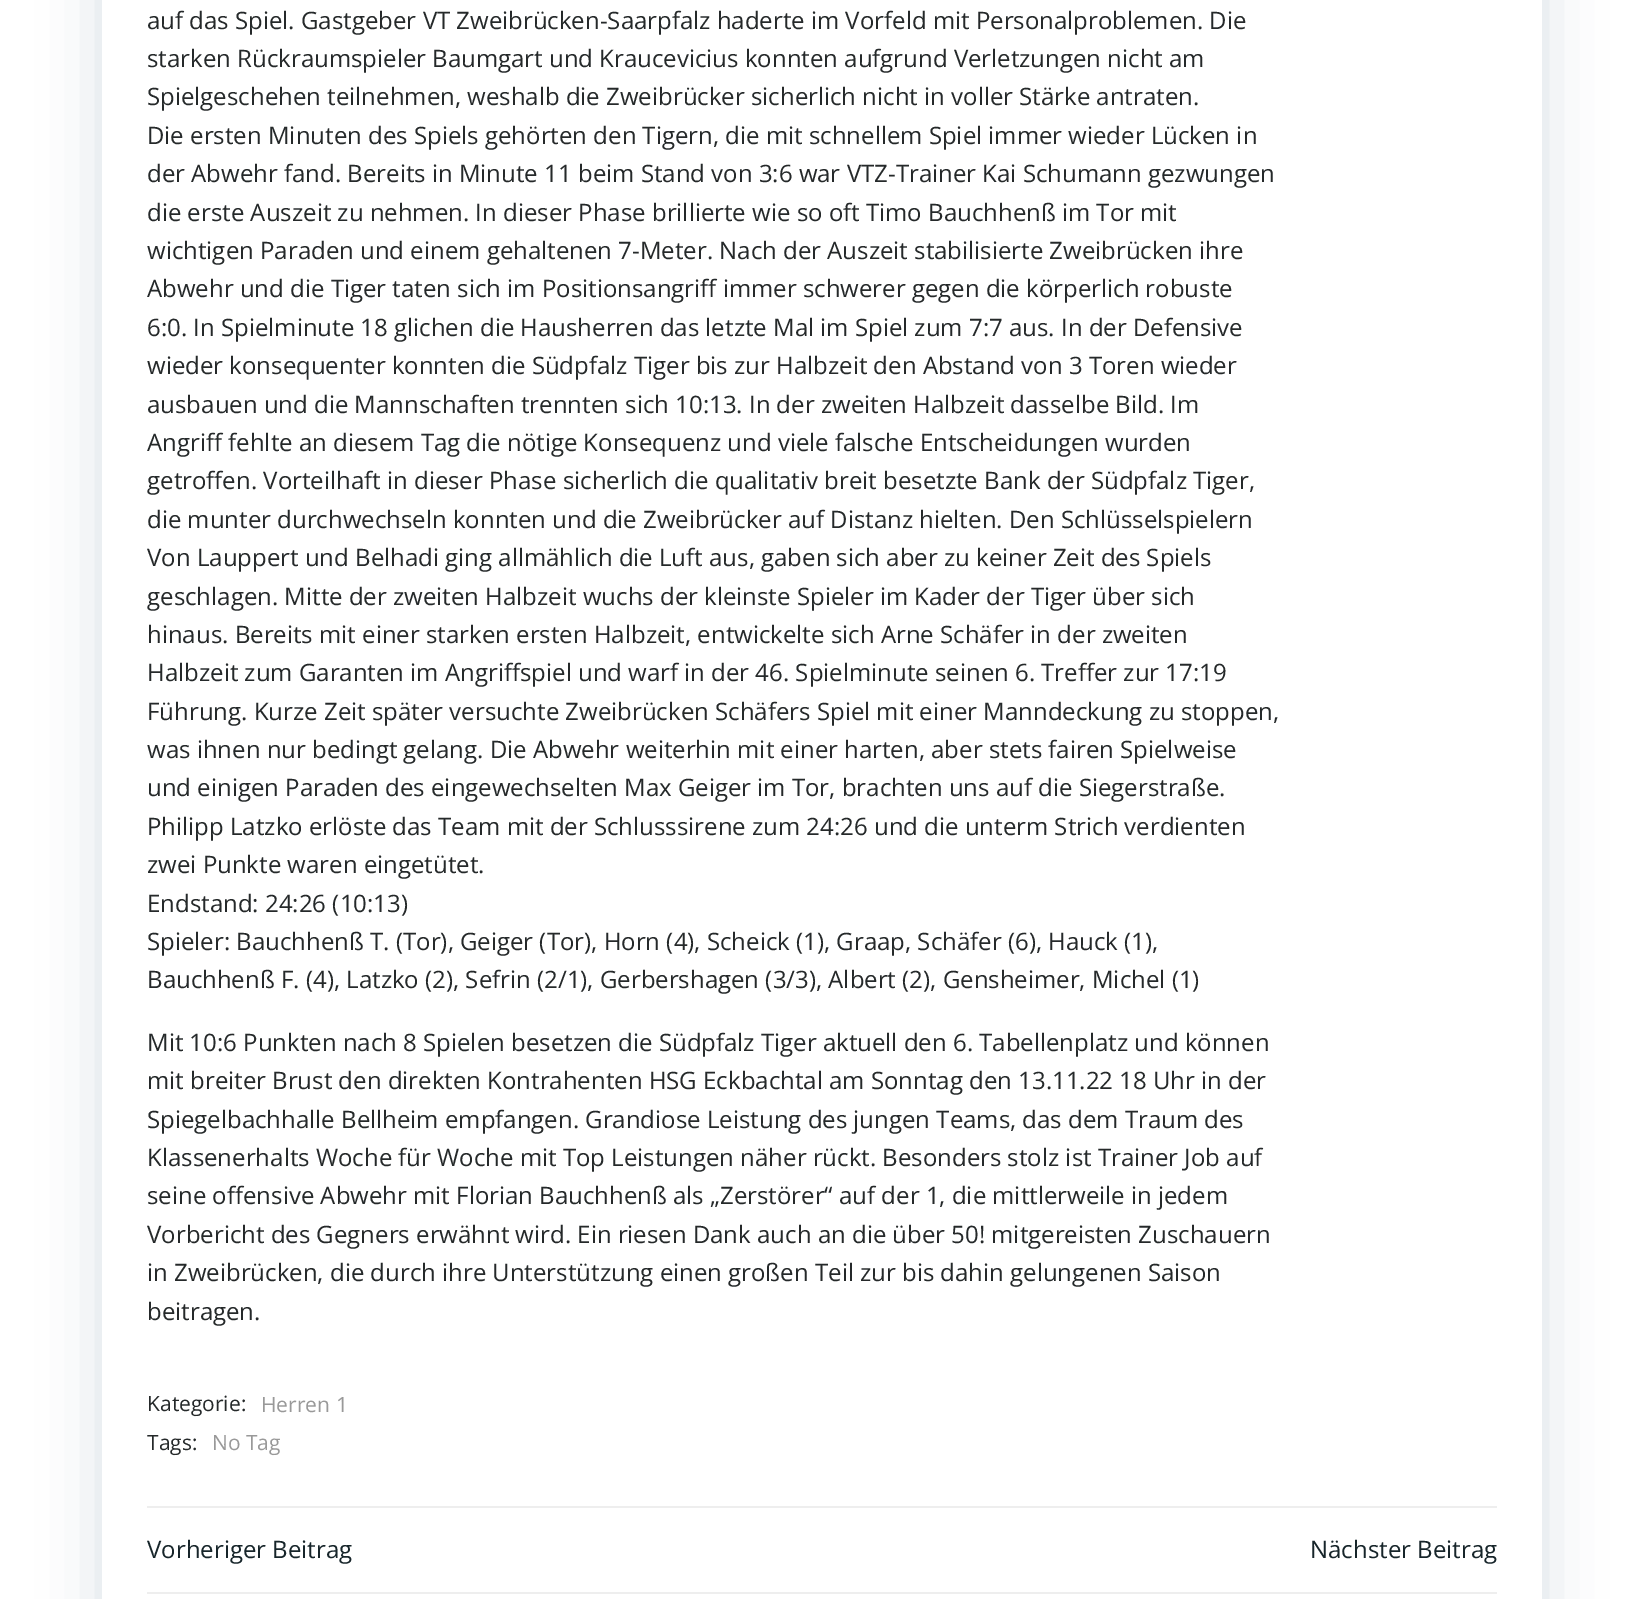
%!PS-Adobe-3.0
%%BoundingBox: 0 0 1644 1599
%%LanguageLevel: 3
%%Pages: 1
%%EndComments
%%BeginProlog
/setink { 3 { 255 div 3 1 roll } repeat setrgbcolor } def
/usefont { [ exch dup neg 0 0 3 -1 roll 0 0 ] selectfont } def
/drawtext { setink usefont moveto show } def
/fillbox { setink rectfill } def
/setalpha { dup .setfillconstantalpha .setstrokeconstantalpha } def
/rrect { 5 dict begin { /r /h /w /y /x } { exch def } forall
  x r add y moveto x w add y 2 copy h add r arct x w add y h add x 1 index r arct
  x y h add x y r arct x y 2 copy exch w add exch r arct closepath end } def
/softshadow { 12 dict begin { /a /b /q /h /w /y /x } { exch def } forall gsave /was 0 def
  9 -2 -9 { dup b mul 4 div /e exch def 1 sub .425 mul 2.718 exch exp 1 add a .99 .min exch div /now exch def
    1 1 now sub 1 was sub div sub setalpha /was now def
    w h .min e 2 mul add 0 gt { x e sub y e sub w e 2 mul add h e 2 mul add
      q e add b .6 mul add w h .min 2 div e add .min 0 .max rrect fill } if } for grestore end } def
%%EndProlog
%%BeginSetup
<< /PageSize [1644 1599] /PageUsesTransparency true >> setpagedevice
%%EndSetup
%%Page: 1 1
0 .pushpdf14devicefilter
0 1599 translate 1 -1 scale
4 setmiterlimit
0 0 1644 1599 255 255 255 fillbox
gsave
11 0 moveto 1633 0 lineto 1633 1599 lineto 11 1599 lineto closepath 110 -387 moveto 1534 -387 lineto 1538.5 -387 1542 -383.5 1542 -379 curveto 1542 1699 lineto 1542 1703.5 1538.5 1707 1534 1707 curveto 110 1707 lineto 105.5 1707 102 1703.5 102 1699 curveto 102 -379 lineto 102 -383.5 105.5 -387 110 -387 curveto closepath eoclip newpath
1 51 74 setink
102 -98 1440 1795 8 30 0.15 softshadow
grestore
(auf das Spiel. Gastgeber VT Zweibrücken-Saarpfalz haderte im Vorfeld mit Personalproblemen. Die) 147 29 /OpenSans-Regular 24 37 41 42 drawtext
(starken Rückraumspieler Baumgart und Kraucevicius konnten aufgrund Verletzungen nicht am) 147 67 /OpenSans-Regular 24 37 41 42 drawtext
(Spielgeschehen teilnehmen, weshalb die Zweibrücker sicherlich nicht in voller Stärke antraten.) 147 105 /OpenSans-Regular 24 37 41 42 drawtext
(Die ersten Minuten des Spiels gehörten den Tigern, die mit schnellem Spiel immer wieder Lücken in) 147 144 /OpenSans-Regular 24 37 41 42 drawtext
(der Abwehr fand. Bereits in Minute 11 beim Stand von 3:6 war VTZ-Trainer Kai Schumann gezwungen) 147 182 /OpenSans-Regular 24 37 41 42 drawtext
(die erste Auszeit zu nehmen. In dieser Phase brillierte wie so oft Timo Bauchhenß im Tor mit) 147 221 /OpenSans-Regular 24 37 41 42 drawtext
(wichtigen Paraden und einem gehaltenen 7-Meter. Nach der Auszeit stabilisierte Zweibrücken ihre) 147 259 /OpenSans-Regular 24 37 41 42 drawtext
(Abwehr und die Tiger taten sich im Positionsangriff immer schwerer gegen die körperlich robuste) 147 297 /OpenSans-Regular 24 37 41 42 drawtext
(6:0. In Spielminute 18 glichen die Hausherren das letzte Mal im Spiel zum 7:7 aus. In der Defensive) 147 336 /OpenSans-Regular 24 37 41 42 drawtext
(wieder konsequenter konnten die Südpfalz Tiger bis zur Halbzeit den Abstand von 3 Toren wieder) 147 374 /OpenSans-Regular 24 37 41 42 drawtext
(ausbauen und die Mannschaften trennten sich 10:13. In der zweiten Halbzeit dasselbe Bild. Im) 147 413 /OpenSans-Regular 24 37 41 42 drawtext
(Angriff fehlte an diesem Tag die nötige Konsequenz und viele falsche Entscheidungen wurden) 147 451 /OpenSans-Regular 24 37 41 42 drawtext
(getroffen. Vorteilhaft in dieser Phase sicherlich die qualitativ breit besetzte Bank der Südpfalz Tiger,) 147 489 /OpenSans-Regular 24 37 41 42 drawtext
(die munter durchwechseln konnten und die Zweibrücker auf Distanz hielten. Den Schlüsselspielern) 147 528 /OpenSans-Regular 24 37 41 42 drawtext
(Von Lauppert und Belhadi ging allmählich die Luft aus, gaben sich aber zu keiner Zeit des Spiels) 147 566 /OpenSans-Regular 24 37 41 42 drawtext
(geschlagen. Mitte der zweiten Halbzeit wuchs der kleinste Spieler im Kader der Tiger über sich) 147 605 /OpenSans-Regular 24 37 41 42 drawtext
(hinaus. Bereits mit einer starken ersten Halbzeit, entwickelte sich Arne Schäfer in der zweiten) 147 643 /OpenSans-Regular 24 37 41 42 drawtext
(Halbzeit zum Garanten im Angriffspiel und warf in der 46. Spielminute seinen 6. Treffer zur 17:19) 147 681 /OpenSans-Regular 24 37 41 42 drawtext
(Führung. Kurze Zeit später versuchte Zweibrücken Schäfers Spiel mit einer Manndeckung zu stoppen,) 147 720 /OpenSans-Regular 24 37 41 42 drawtext
(was ihnen nur bedingt gelang. Die Abwehr weiterhin mit einer harten, aber stets fairen Spielweise) 147 758 /OpenSans-Regular 24 37 41 42 drawtext
(und einigen Paraden des eingewechselten Max Geiger im Tor, brachten uns auf die Siegerstraße.) 147 796 /OpenSans-Regular 24 37 41 42 drawtext
(Philipp Latzko erlöste das Team mit der Schlusssirene zum 24:26 und die unterm Strich verdienten) 147 835 /OpenSans-Regular 24 37 41 42 drawtext
(zwei Punkte waren eingetütet.) 147 873 /OpenSans-Regular 24 37 41 42 drawtext
(Endstand: 24:26 \(10:13\)) 147 912 /OpenSans-Regular 24 37 41 42 drawtext
(Spieler: Bauchhenß T. \(Tor\), Geiger \(Tor\), Horn \(4\), Scheick \(1\), Graap, Schäfer \(6\), Hauck \(1\),) 147 950 /OpenSans-Regular 24 37 41 42 drawtext
(Bauchhenß F. \(4\), Latzko \(2\), Sefrin \(2/1\), Gerbershagen \(3/3\), Albert \(2\), Gensheimer, Michel \(1\)) 147 988 /OpenSans-Regular 24 37 41 42 drawtext
(Mit 10:6 Punkten nach 8 Spielen besetzen die Südpfalz Tiger aktuell den 6. Tabellenplatz und können) 147 1051 /OpenSans-Regular 24 37 41 42 drawtext
(mit breiter Brust den direkten Kontrahenten HSG Eckbachtal am Sonntag den 13.11.22 18 Uhr in der) 147 1089 /OpenSans-Regular 24 37 41 42 drawtext
(Spiegelbachhalle Bellheim empfangen. Grandiose Leistung des jungen Teams, das dem Traum des) 147 1128 /OpenSans-Regular 24 37 41 42 drawtext
(Klassenerhalts Woche für Woche mit Top Leistungen näher rückt. Besonders stolz ist Trainer Job auf) 147 1166 /OpenSans-Regular 24 37 41 42 drawtext
(seine offensive Abwehr mit Florian Bauchhenß als „Zerstörer“ auf der 1, die mittlerweile in jedem) 147 1204 /OpenSans-Regular 24 37 41 42 drawtext
(Vorbericht des Gegners erwähnt wird. Ein riesen Dank auch an die über 50! mitgereisten Zuschauern) 147 1243 /OpenSans-Regular 24 37 41 42 drawtext
(in Zweibrücken, die durch ihre Unterstützung einen großen Teil zur bis dahin gelungenen Saison) 147 1281 /OpenSans-Regular 24 37 41 42 drawtext
(beitragen.) 147 1320 /OpenSans-Regular 24 37 41 42 drawtext
(Kategorie:) 147 1411 /OpenSans-Regular 21 37 41 42 drawtext
(Herren 1) 261 1412 /OpenSans-Regular 21 153 153 153 drawtext
(Tags:) 147 1450 /OpenSans-Regular 21 37 41 42 drawtext
(No Tag) 212 1450 /OpenSans-Regular 21 153 153 153 drawtext
147 1506 1350 2 238 238 238 fillbox
(Vorheriger Beitrag) 147 1558 /OpenSans-Regular 24 23 37 42 drawtext
(Nächster Beitrag) 1310 1558 /OpenSans-Regular 24 23 37 42 drawtext
147 1592 1350 2 238 238 238 fillbox
.poppdf14devicefilter showpage
%%EOF
